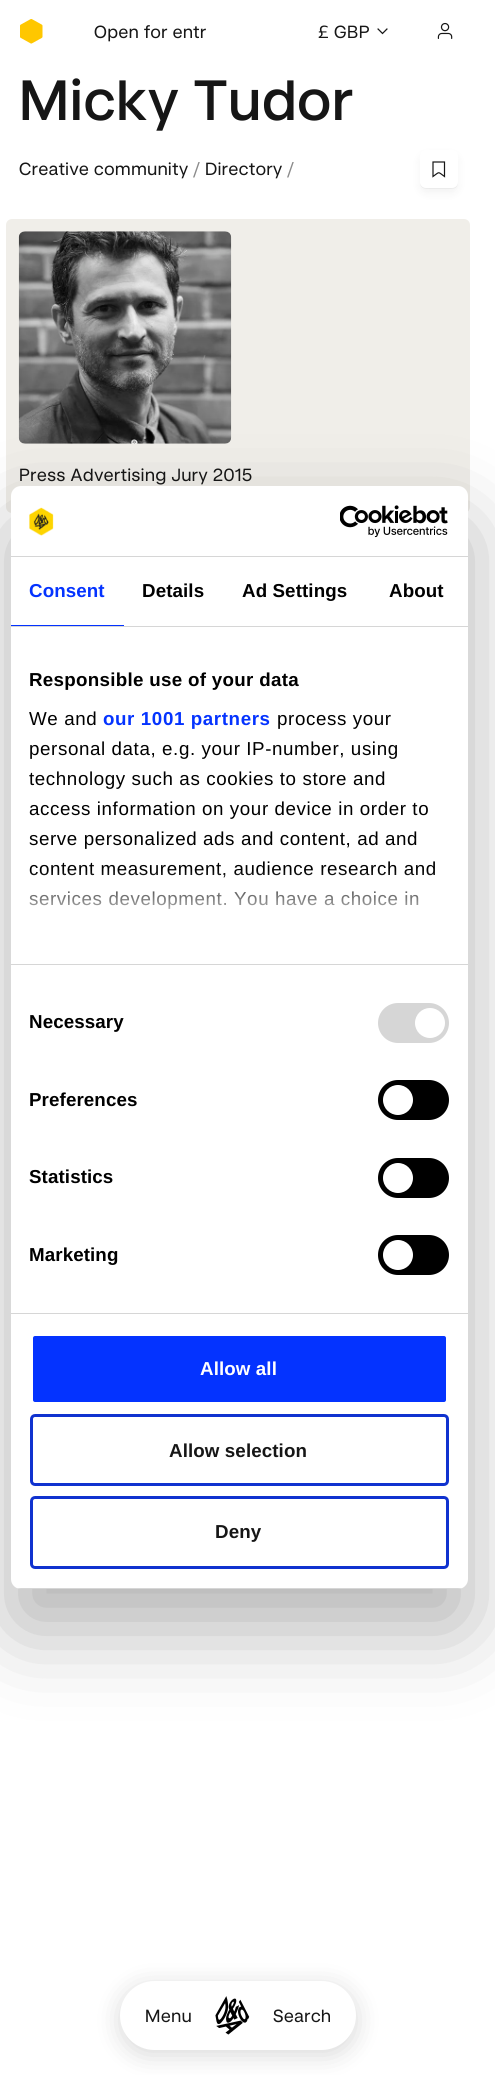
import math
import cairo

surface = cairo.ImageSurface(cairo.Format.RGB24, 495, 2075)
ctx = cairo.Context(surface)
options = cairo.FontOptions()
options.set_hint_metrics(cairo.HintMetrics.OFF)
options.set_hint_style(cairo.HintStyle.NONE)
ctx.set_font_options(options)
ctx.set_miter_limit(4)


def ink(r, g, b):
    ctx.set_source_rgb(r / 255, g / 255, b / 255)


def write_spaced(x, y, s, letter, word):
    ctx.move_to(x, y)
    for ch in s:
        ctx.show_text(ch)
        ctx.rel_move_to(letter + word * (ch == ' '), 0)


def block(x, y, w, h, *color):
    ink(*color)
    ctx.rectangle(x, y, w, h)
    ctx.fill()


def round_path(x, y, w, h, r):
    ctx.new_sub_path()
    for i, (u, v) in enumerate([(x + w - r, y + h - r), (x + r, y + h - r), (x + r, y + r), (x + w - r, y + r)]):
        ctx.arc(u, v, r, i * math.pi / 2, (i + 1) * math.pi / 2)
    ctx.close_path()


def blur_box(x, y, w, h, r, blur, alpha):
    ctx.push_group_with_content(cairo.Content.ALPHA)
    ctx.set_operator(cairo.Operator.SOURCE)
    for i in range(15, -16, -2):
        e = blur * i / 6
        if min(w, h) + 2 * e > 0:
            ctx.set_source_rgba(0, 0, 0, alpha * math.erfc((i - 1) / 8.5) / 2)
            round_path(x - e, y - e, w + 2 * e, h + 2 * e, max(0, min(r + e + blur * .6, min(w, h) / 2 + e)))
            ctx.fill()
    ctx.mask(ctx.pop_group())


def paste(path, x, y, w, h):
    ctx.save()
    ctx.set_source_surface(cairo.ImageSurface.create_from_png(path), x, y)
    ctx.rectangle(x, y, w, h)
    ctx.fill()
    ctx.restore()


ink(255, 255, 255)
ctx.paint()
paste("pic1.png", 20, 19, 23, 25)
ctx.select_font_face("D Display")
ctx.set_font_size(17.5)
ink(22, 22, 22)
write_spaced(94, 38, "Open for entr", 0.6, 0)
write_spaced(318, 38, "£ GBP", 0.6, 0)
paste("pic2.png", 377, 28, 11, 7)
paste("pic3.png", 437, 22, 16, 17)
ctx.select_font_face("D Display Medium")
ctx.set_font_size(56.25)
write_spaced(19, 120, "Micky Tudor", 1.25, 0)
ctx.select_font_face("D Display")
ctx.set_font_size(17.5)
write_spaced(19, 175, "Creative community", 0.6, 0)
ink(139, 139, 139)
write_spaced(193, 175, "/", 0.6, 0)
ink(22, 22, 22)
write_spaced(205, 175, "Directory", 0.6, 0)
ink(139, 139, 139)
write_spaced(287, 175, "/", 0.6, 0)
ink(245, 245, 245)
ctx.new_path()
ctx.move_to(420, 181)
ctx.curve_to(420, 189, 423.5, 189, 430.5, 189)
ctx.line_to(439, 189)
ctx.curve_to(460, 189, 458, 191, 458, 170)
ctx.line_to(458, 161.5)
ctx.curve_to(458, 158.5, 458.5, 155.5, 457, 153.5)
ctx.curve_to(457.5, 154.5, 457.5, 155, 457.5, 156)
ctx.line_to(457.5, 181)
ctx.curve_to(457.5, 184.5, 454.5, 187.5, 451, 187.5)
ctx.line_to(426, 187.5)
ctx.curve_to(423, 187.5, 420, 184.5, 420, 181)
ctx.close_path()
ctx.fill()
ink(0, 0, 0)
blur_box(420, 155, 38, 38, 6, 4.5, 0.05)
ink(255, 255, 255)
round_path(420, 150, 38, 38, 6)
ctx.fill()
ctx.new_path()
ctx.move_to(433, 162)
ctx.line_to(444.5, 162)
ctx.line_to(444.5, 176.5)
ctx.curve_to(437.5, 171.5, 440, 171.5, 433, 176.5)
ctx.close_path()
ink(22, 22, 22)
ctx.set_line_width(1.2)
ctx.stroke()
ink(240, 238, 233)
round_path(6, 219, 464, 294, 6)
ctx.fill()
paste("pic4.png", 18, 231, 214, 213)
ink(22, 22, 22)
write_spaced(19, 481, "Press Advertising Jury 2015", 0.6, 0)
ink(0, 0, 0)
blur_box(120, 1986, 236, 69, 34.5, 12.5, 0.15)
ink(255, 255, 255)
round_path(120, 1981, 236, 69, 34.5)
ctx.fill()
ink(22, 22, 22)
write_spaced(145, 2022, "Menu", 0.6, 0)
paste("pic5.png", 215, 1996, 35, 39)
write_spaced(273, 2022, "Search", 0.6, 0)
ink(0, 0, 0)
blur_box(11, 526, 457, 1103, 10, 42.5, 0.3)
ink(255, 255, 255)
round_path(11, 486, 457, 1103, 10)
ctx.fill()
block(11, 556, 457, 1, 214, 214, 214)
paste("pic6.png", 29, 507, 25, 29)
paste("pic7.png", 340, 505, 108, 33)
block(11, 626, 457, 1, 214, 214, 214)
block(11, 625, 113, 1, 4, 51, 255)
ctx.select_font_face("Liberation Sans", cairo.FontSlant.NORMAL, cairo.FontWeight.BOLD)
ctx.set_font_size(18.75)
write_spaced(29, 597, "Consent", 0.1, 0)
ink(0, 0, 0)
write_spaced(142, 597, "Details", 0.1, 0)
write_spaced(242, 597, "Ad Settings", 0.1, 0)
write_spaced(389, 597, "About", 0.1, 0)
block(11, 964, 457, 1, 214, 214, 214)
ink(0, 0, 0)
write_spaced(29, 686, "Responsible use of your data", 0.3, 0)
ctx.select_font_face("Liberation Sans")
write_spaced(29, 725, "We and", 0.6, 0)
ctx.select_font_face("Liberation Sans", cairo.FontSlant.NORMAL, cairo.FontWeight.BOLD)
ink(4, 51, 255)
write_spaced(103, 725, "our 1001 partners", 0.6, 0)
ctx.select_font_face("Liberation Sans")
ink(0, 0, 0)
write_spaced(277, 725, "process your", 0.6, 0)
write_spaced(29, 755, "personal data, e.g. your IP-number, using", 0.6, 0)
write_spaced(29, 785, "technology such as cookies to store and", 0.6, 0)
write_spaced(29, 815, "access information on your device in order to", 0.6, 0)
write_spaced(29, 845, "serve personalized ads and content, ad and", 0.6, 0)
write_spaced(29, 875, "content measurement, audience research and", 0.6, 0)
write_spaced(29, 905, "services development. You have a choice in", 0.6, 0)
gradient = cairo.LinearGradient(231, 964, 231, 870)
gradient.add_color_stop_rgba(0, 1, 1, 1, 1)
gradient.add_color_stop_rgba(0.5, 1, 1, 1, 0.8)
gradient.add_color_stop_rgba(1, 1, 1, 1, 0)
ctx.set_source(gradient)
ctx.rectangle(29, 871, 407, 38)
ctx.fill()
block(11, 1313, 457, 1, 214, 214, 214)
ctx.select_font_face("Liberation Sans", cairo.FontSlant.NORMAL, cairo.FontWeight.BOLD)
ink(0, 0, 0)
write_spaced(29, 1028, "Necessary", 0.1, 0)
ink(214, 214, 214)
round_path(378, 1003, 71, 40, 20)
ctx.fill()
ink(255, 255, 255)
ctx.arc(430, 1023, 15, 0, 2 * math.pi)
ctx.fill()
ink(0, 0, 0)
write_spaced(29, 1106, "Preferences", 0.1, 0)
round_path(378, 1080, 71, 40, 20)
ctx.fill()
ink(255, 255, 255)
ctx.arc(398, 1100, 15, 0, 2 * math.pi)
ctx.fill()
ink(0, 0, 0)
write_spaced(29, 1183, "Statistics", 0.1, 0)
round_path(378, 1158, 71, 40, 20)
ctx.fill()
ink(255, 255, 255)
ctx.arc(398, 1178, 15, 0, 2 * math.pi)
ctx.fill()
ink(0, 0, 0)
write_spaced(29, 1261, "Marketing", 0.1, 0)
round_path(378, 1235, 71, 40, 20)
ctx.fill()
ink(255, 255, 255)
ctx.arc(398, 1255, 15, 0, 2 * math.pi)
ctx.fill()
ctx.save()
round_path(11, 486, 457, 1103, 10)
ctx.clip()
block(11, 1588, 457, 1, 214, 214, 214)
ctx.restore()
ink(4, 51, 255)
round_path(31.5, 1334.5, 416, 69, 3.5)
ctx.fill_preserve()
ink(255, 255, 255)
ctx.set_line_width(3)
ctx.stroke()
write_spaced(200, 1375, "Allow all", 0.1, 0)
round_path(31.5, 1415.5, 416, 69, 3.5)
ink(16, 50, 207)
ctx.stroke()
ink(22, 22, 22)
write_spaced(169, 1457, "Allow selection", 0.1, 0)
round_path(31.5, 1497.5, 416, 70, 3.5)
ink(16, 50, 207)
ctx.stroke()
ink(22, 22, 22)
write_spaced(215, 1538, "Deny", 0.1, 0)
surface.write_to_png("screenshot.png")
